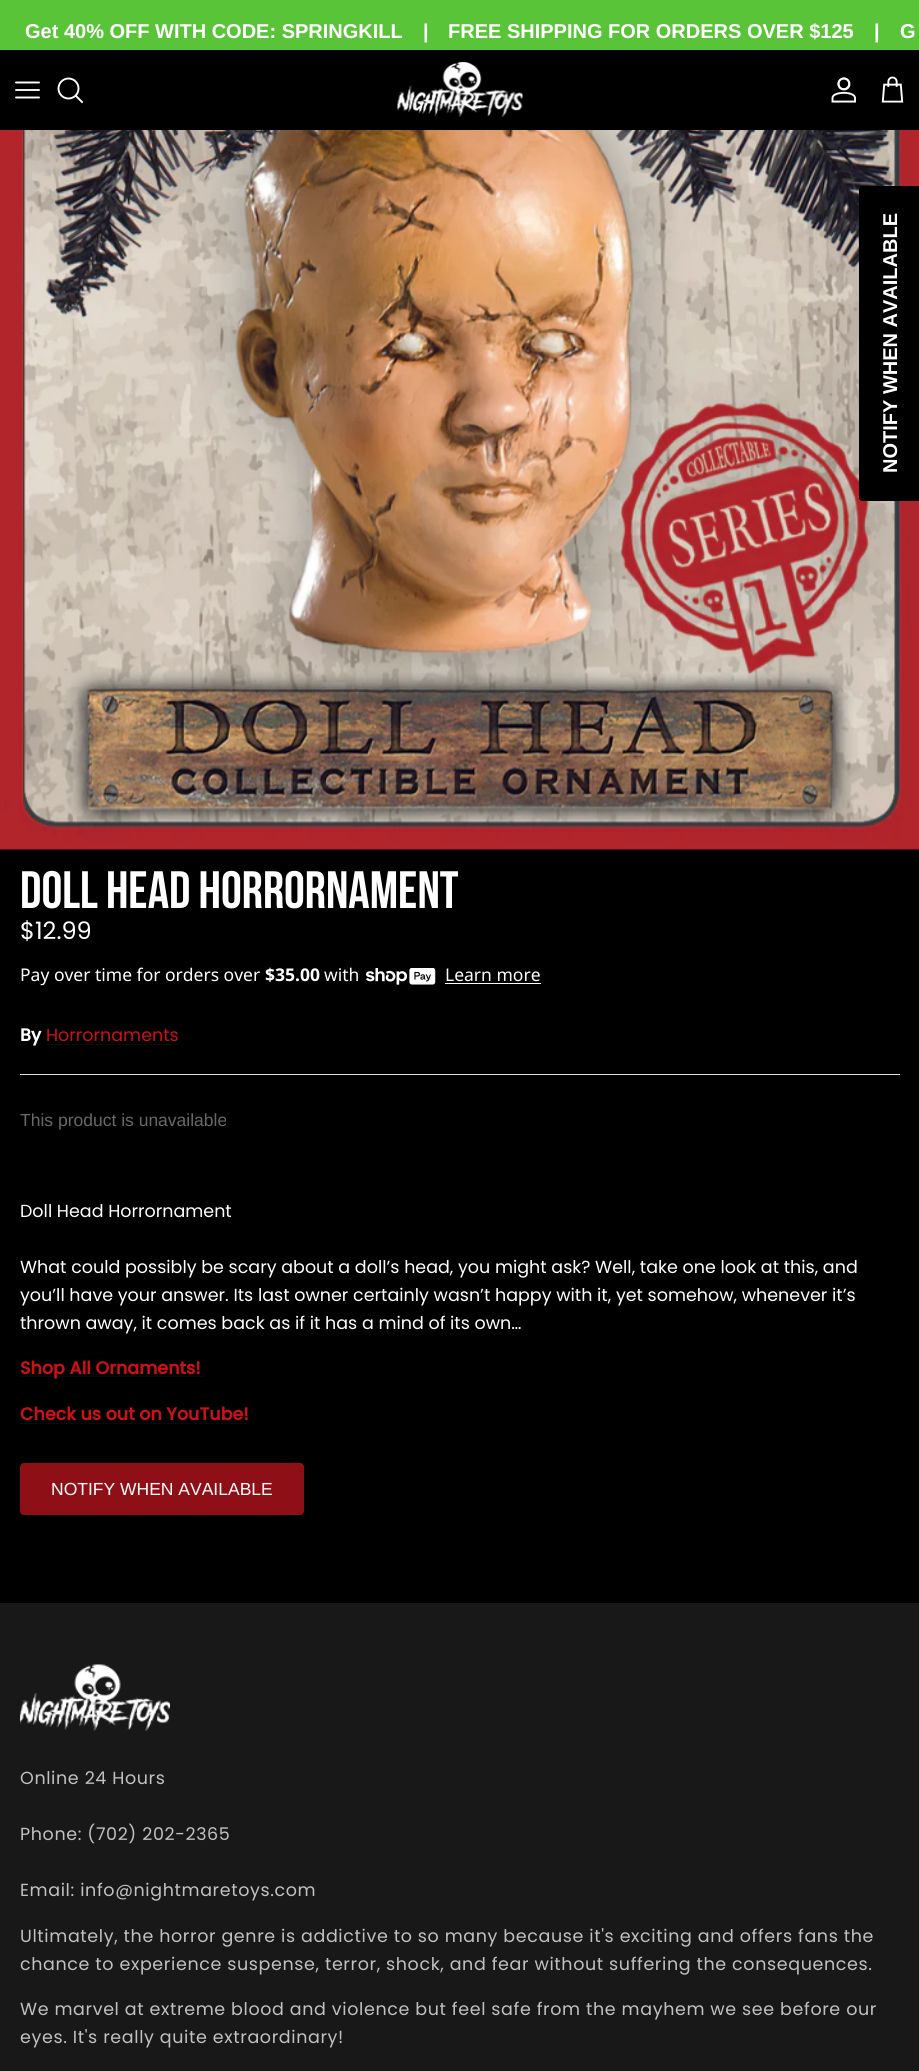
import math
import cairo

surface = cairo.ImageSurface(cairo.Format.RGB24, 919, 2071)
ctx = cairo.Context(surface)
options = cairo.FontOptions()
options.set_hint_metrics(cairo.HintMetrics.OFF)
options.set_hint_style(cairo.HintStyle.NONE)
ctx.set_font_options(options)
ctx.set_miter_limit(4)


def ink(r, g, b):
    ctx.set_source_rgb(r / 255, g / 255, b / 255)


def write(x, y, s, family, size, color, bold=False, italic=False):
    ctx.select_font_face(family, cairo.FontSlant.ITALIC if italic else cairo.FontSlant.NORMAL, cairo.FontWeight.BOLD if bold else cairo.FontWeight.NORMAL)
    ctx.set_font_size(size)
    ink(*color)
    ctx.move_to(x, y)
    ctx.show_text(s)


def write_spaced(x, y, s, letter, word):
    ctx.move_to(x, y)
    for ch in s:
        ctx.show_text(ch)
        ctx.rel_move_to(letter + word * (ch == ' '), 0)


def block(x, y, w, h, *color):
    ink(*color)
    ctx.rectangle(x, y, w, h)
    ctx.fill()


def round_path(x, y, w, h, r):
    ctx.new_sub_path()
    for i, (u, v) in enumerate([(x + w - r, y + h - r), (x + r, y + h - r), (x + r, y + r), (x + w - r, y + r)]):
        ctx.arc(u, v, r, i * math.pi / 2, (i + 1) * math.pi / 2)
    ctx.close_path()


def paste(path, x, y, w, h):
    ctx.save()
    ctx.set_source_surface(cairo.ImageSurface.create_from_png(path), x, y)
    ctx.rectangle(x, y, w, h)
    ctx.fill()
    ctx.restore()


s1 = dict(family="Arimo", size=20, color=(255, 255, 255), bold=True)
s2 = dict(family="Liberation Sans", size=20, color=(255, 255, 255), bold=True)
s3 = dict(family="Bebas Neue", size=52.5, color=(255, 255, 255))
s4 = dict(family="Poppins", size=24, color=(255, 255, 255))
s5 = dict(family="Noto Sans", size=17.5, color=(255, 255, 255))
s6 = dict(family="Noto Sans", size=17.5, color=(255, 255, 255), bold=True)
s7 = dict(family="Poppins", size=17.5, color=(255, 255, 255), bold=True)
s8 = dict(family="Poppins", size=17.5, color=(204, 16, 24))
s9 = dict(family="Arimo", size=17.5, color=(103, 104, 105))
s10 = dict(family="Poppins", size=17.5, color=(255, 255, 255))
s11 = dict(family="Poppins", size=17.5, color=(204, 16, 24), bold=True)
s12 = dict(family="Arimo", size=17.5, color=(255, 255, 255))

ink(0, 0, 0)
ctx.paint()
block(0, 0, 919, 50, 90, 196, 57)
write(25, 38, "Get 40% OFF WITH CODE: SPRINGKILL", **s1)
write(423, 38, "|", **s1)
write(448, 38, "FREE SHIPPING FOR ORDERS OVER $125", **s1)
write(874, 38, "|", **s1)
write(900, 38, "G", **s1)
ctx.new_path()
ctx.move_to(16, 90)
ctx.line_to(39, 90)
ctx.move_to(16, 82.5)
ctx.line_to(39, 82.5)
ctx.move_to(16, 97.5)
ctx.line_to(39, 97.5)
ctx.set_line_width(1.9)
ctx.set_line_cap(cairo.LineCap.ROUND)
ctx.set_line_join(cairo.LineJoin.ROUND)
ctx.stroke()
ctx.arc(68.5, 88.5, 10, 0, 2 * math.pi)
ctx.set_line_cap(cairo.LineCap.BUTT)
ctx.set_line_join(cairo.LineJoin.MITER)
ctx.stroke()
ctx.new_path()
ctx.move_to(76, 96)
ctx.line_to(82, 102)
ctx.set_line_cap(cairo.LineCap.SQUARE)
ctx.stroke()
paste("pic1.png", 397, 62, 126, 55)
paste("pic2.png", 831, 77, 25, 26)
paste("pic3.png", 881, 76, 23, 27)
paste("pic4.png", 0, 130, 919, 720)
ink(0, 0, 0)
ctx.new_path()
ctx.move_to(860, 497)
ctx.line_to(860, 190)
ctx.curve_to(860, 189, 861, 187, 863, 187)
ctx.line_to(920, 187)
ctx.line_to(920, 499)
ctx.line_to(863, 499)
ctx.curve_to(861, 499, 860, 498, 860, 497)
ctx.close_path()
ctx.fill()
ctx.set_fill_rule(cairo.FillRule.EVEN_ODD)
ctx.new_path()
ctx.move_to(859, 497)
ctx.line_to(859, 190)
ctx.curve_to(859, 188, 860, 186, 863, 186)
ctx.line_to(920, 186)
ctx.line_to(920, 501)
ctx.line_to(863, 501)
ctx.curve_to(860, 501, 859, 499, 859, 497)
ctx.close_path()
ctx.move_to(860, 497)
ctx.line_to(860, 190)
ctx.curve_to(860, 189, 861, 187, 863, 187)
ctx.line_to(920, 187)
ctx.line_to(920, 499)
ctx.line_to(863, 499)
ctx.curve_to(861, 499, 860, 498, 860, 497)
ctx.close_path()
ctx.fill()
ctx.save()
ctx.translate(897, 473)
ctx.rotate(-90 * math.pi / 180)
write(0, 0, "NOTIFY WHEN AVAILABLE", **s2)
ctx.restore()
write(20, 908, "Doll Head Horrornament", **s3)
write(20, 939, "$12.99", **s4)
write(20, 981, "Pay over time for orders over", **s5)
write(265, 981, "$35.00", **s6)
write(324, 981, "with", **s5)
paste("pic5.png", 366, 968, 70, 17)
write(445, 981, "Learn more", **s5)
block(445, 983, 96, 1, 255, 255, 255)
write(20, 1041, "By", **s7)
write(46, 1041, "Horrornaments", **s8)
block(46, 1044, 133, 1, 9, 9, 9)
block(20, 1074, 880, 1, 226, 226, 226)
write(20, 1126, "This product is unavailable", **s9)
write(20, 1217, "Doll Head Horrornament", **s10)
write(20, 1273, "What could possibly be scary about a doll’s head, you might ask? Well, take one look at this, and", **s10)
write(20, 1301, "you’ll have your answer. Its last owner certainly wasn’t happy with it, yet somehow, whenever it’s", **s10)
write(20, 1329, "thrown away, it comes back as if it has a mind of its own…", **s10)
block(20, 1376, 185, 1, 9, 9, 9)
write(20, 1374, "Shop All Ornaments!", **s11)
write(20, 1420, "Check us out on YouTube!", **s11)
block(20, 1423, 229, 1, 9, 9, 9)
ink(143, 15, 22)
round_path(20, 1463, 284, 52, 4)
ctx.fill()
write(51, 1495, "NOTIFY WHEN AVAILABLE", **s12)
block(0, 1603, 919, 468, 24, 24, 24)
paste("pic6.png", 20, 1664, 150, 67)
ctx.select_font_face("Poppins")
ink(193, 193, 193)
write_spaced(20, 1784, "Online 24 Hours", 0.62, 0)
write_spaced(20, 1840, "Phone: (702) 202-2365", 0.62, 0)
write_spaced(20, 1896, "Email: info@nightmaretoys.com", 0.62, 0)
write_spaced(20, 1942, "Ultimately, the horror genre is addictive to so many because it's exciting and offers fans the", 0.62, 0)
write_spaced(20, 1970, "chance to experience suspense, terror, shock, and fear without suffering the consequences.", 0.62, 0)
write_spaced(20, 2015, "We marvel at extreme blood and violence but feel safe from the mayhem we see before our", 0.62, 0)
write_spaced(20, 2043, "eyes. It's really quite extraordinary!", 0.62, 0)
surface.write_to_png("screenshot.png")
